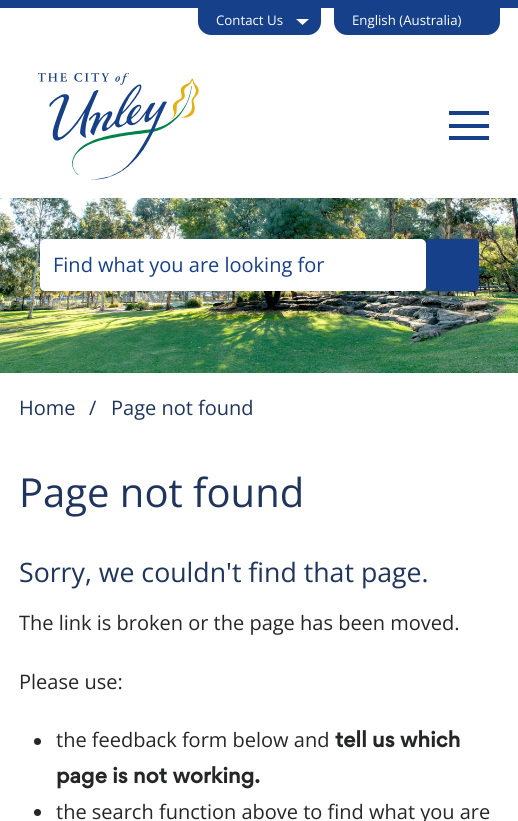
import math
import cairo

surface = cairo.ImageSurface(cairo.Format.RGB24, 518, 821)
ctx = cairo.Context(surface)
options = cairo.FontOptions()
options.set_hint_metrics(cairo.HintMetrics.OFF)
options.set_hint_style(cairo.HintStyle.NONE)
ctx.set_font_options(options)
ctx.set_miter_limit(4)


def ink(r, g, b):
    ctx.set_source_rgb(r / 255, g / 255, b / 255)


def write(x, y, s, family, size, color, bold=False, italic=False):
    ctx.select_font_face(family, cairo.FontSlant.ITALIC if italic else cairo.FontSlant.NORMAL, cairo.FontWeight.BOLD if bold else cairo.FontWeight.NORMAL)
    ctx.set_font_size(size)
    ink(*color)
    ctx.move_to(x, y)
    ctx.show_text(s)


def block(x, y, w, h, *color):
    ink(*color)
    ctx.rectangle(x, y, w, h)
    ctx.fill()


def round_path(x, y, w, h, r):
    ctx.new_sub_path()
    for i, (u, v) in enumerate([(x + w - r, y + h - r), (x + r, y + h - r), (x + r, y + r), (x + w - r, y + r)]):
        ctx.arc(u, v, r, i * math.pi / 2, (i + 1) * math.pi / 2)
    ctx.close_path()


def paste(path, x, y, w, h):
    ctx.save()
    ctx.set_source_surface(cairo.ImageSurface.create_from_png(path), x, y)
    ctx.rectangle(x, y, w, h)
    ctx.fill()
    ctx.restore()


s1 = dict(family="Open Sans", size=13.25, color=(255, 255, 255))
s2 = dict(family="Open Sans", size=20, color=(22, 64, 138))
s3 = dict(family="Open Sans", size=20, color=(31, 53, 94))
s4 = dict(family="Open Sans", size=40, color=(31, 53, 94))
s5 = dict(family="Open Sans", size=26.7, color=(31, 53, 94))
s6 = dict(family="Open Sans", size=20, color=(37, 39, 38))
s7 = dict(family="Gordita", size=20, color=(37, 39, 38), bold=True)

ink(255, 255, 255)
ctx.paint()
paste("pic1.png", 0, 198, 518, 175)
block(0, 0, 518, 8, 22, 64, 138)
ctx.new_path()
ctx.move_to(198, 8)
ctx.line_to(321, 8)
ctx.line_to(321, 22)
ctx.curve_to(321, 29, 315, 35, 308, 35)
ctx.line_to(211, 35)
ctx.curve_to(204, 35, 198, 29, 198, 22)
ctx.close_path()
ctx.fill()
write(216, 25, "Contact Us", **s1)
ctx.new_path()
ctx.move_to(296, 19)
ctx.line_to(309, 19)
ctx.line_to(302.5, 25)
ctx.close_path()
ctx.fill()
ink(22, 64, 138)
ctx.new_path()
ctx.move_to(334, 8)
ctx.line_to(500, 8)
ctx.line_to(500, 22)
ctx.curve_to(500, 29, 494, 35, 487, 35)
ctx.line_to(347, 35)
ctx.curve_to(340, 35, 334, 29, 334, 22)
ctx.close_path()
ctx.fill()
write(352, 25, "English (Australia)", **s1)
paste("pic2.png", 38, 73, 161, 107)
block(449, 124, 40, 4, 22, 64, 138)
block(449, 111, 40, 4, 22, 64, 138)
block(449, 136, 40, 4, 22, 64, 138)
ink(255, 255, 255)
round_path(40, 239, 386, 52, 5)
ctx.fill()
write(53, 272, "Find what you are looking for", **s2)
round_path(426, 239, 53, 52, 5)
ctx.fill()
write(19, 415, "Home", **s3)
write(89, 415, "/", **s3)
write(111, 415, "Page not found", **s3)
write(19, 507, "Page not found", **s4)
write(19, 582, "Sorry, we couldn't find that page.", **s5)
write(19, 630, "The link is broken or the page has been moved.", **s6)
write(19, 689, "Please use:", **s6)
ctx.new_path()
ctx.arc(37.5, 741.5, 3.5, 0, 2 * math.pi)
ctx.fill()
write(56, 747, "the feedback form below and", **s6)
write(335, 747, "tell us which", **s7)
write(56, 783, "page is not working.", **s7)
ctx.new_path()
ctx.arc(37.5, 812.5, 3.5, 0, 2 * math.pi)
ctx.fill()
write(56, 819, "the search function above to find what you are", **s6)
surface.write_to_png("screenshot.png")
